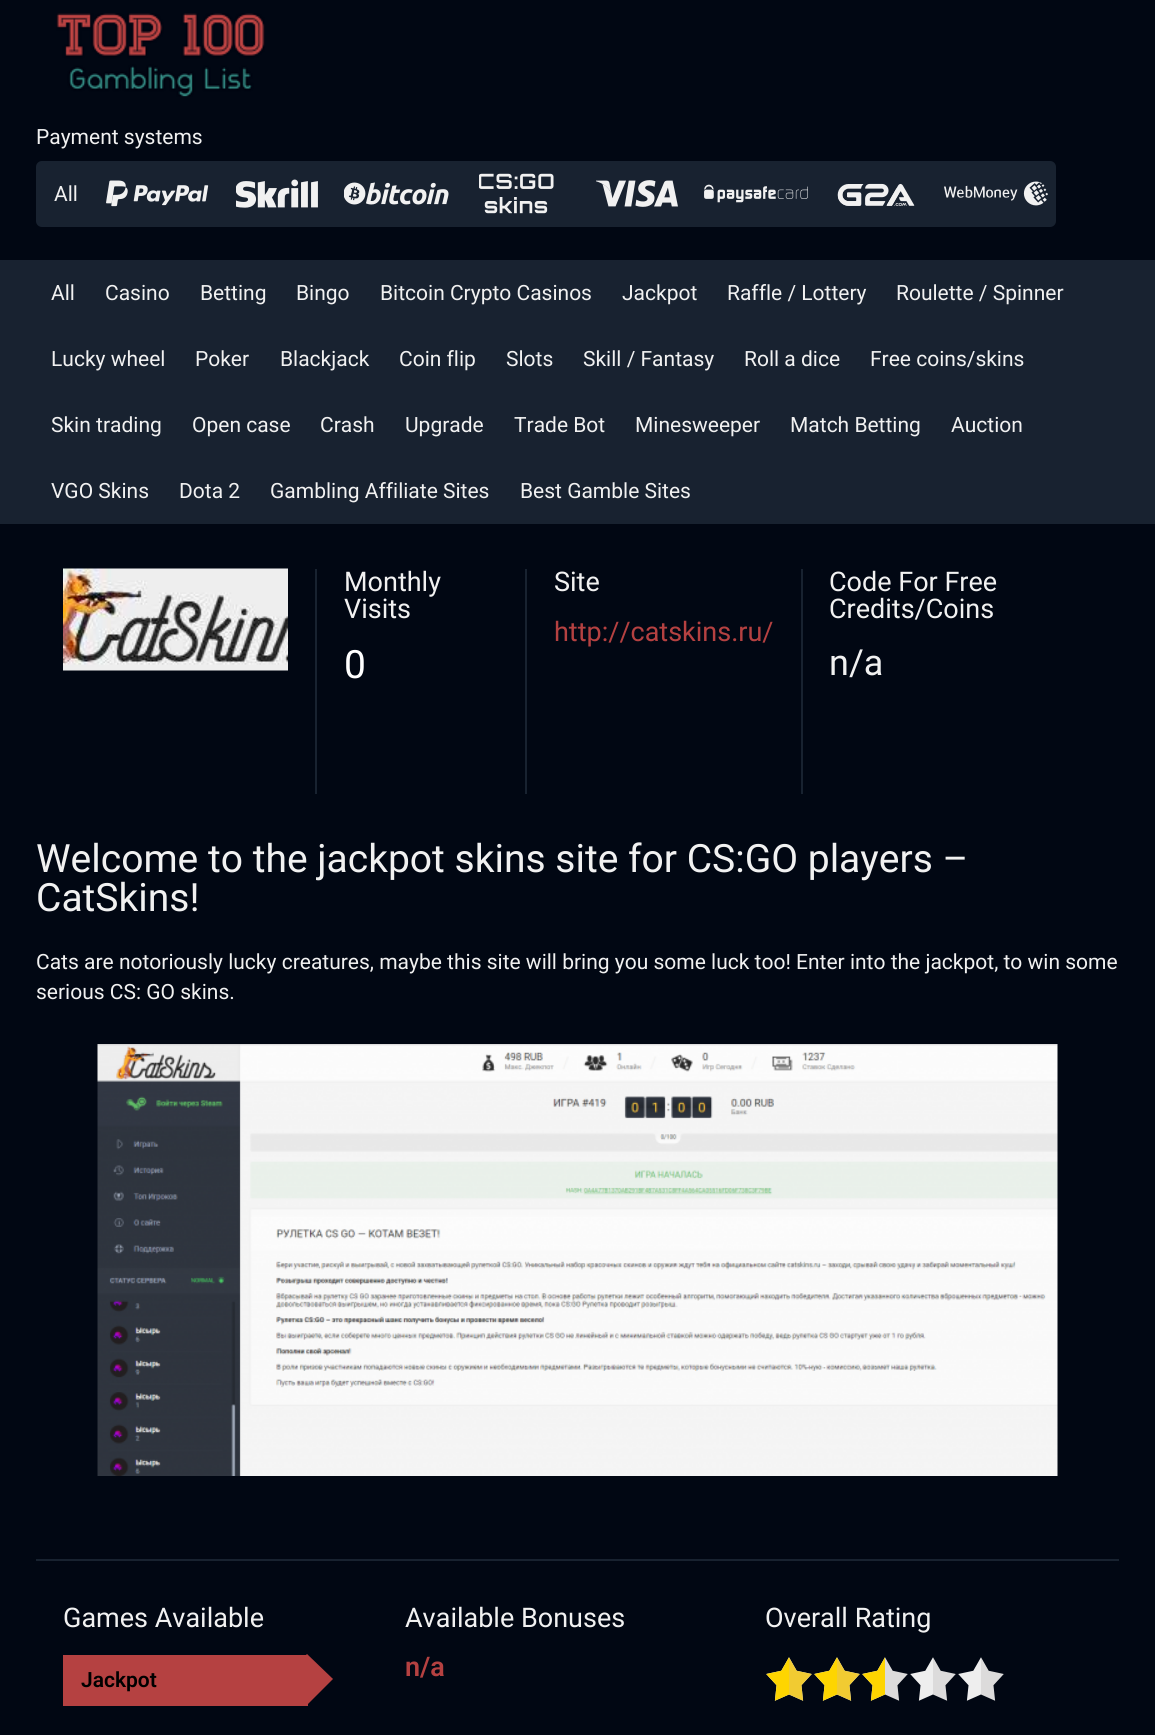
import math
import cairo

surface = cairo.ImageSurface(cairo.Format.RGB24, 1155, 1735)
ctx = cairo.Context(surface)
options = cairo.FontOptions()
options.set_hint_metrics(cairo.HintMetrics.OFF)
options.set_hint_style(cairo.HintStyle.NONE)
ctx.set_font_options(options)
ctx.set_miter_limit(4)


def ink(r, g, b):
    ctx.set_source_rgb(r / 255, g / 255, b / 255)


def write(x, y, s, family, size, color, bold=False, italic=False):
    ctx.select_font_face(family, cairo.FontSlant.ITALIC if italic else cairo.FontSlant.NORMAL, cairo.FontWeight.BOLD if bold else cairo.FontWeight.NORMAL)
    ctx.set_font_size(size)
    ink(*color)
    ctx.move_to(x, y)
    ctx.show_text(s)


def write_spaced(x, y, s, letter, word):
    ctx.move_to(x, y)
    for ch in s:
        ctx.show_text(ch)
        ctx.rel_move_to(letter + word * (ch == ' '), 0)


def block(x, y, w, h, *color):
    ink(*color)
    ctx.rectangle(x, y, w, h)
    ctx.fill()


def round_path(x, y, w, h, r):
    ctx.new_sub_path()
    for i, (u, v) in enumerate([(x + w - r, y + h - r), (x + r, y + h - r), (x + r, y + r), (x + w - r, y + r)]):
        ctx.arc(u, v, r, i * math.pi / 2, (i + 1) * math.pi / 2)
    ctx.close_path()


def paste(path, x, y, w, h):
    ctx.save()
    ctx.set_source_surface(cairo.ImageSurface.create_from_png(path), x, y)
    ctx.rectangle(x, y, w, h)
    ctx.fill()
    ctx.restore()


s1 = dict(family="Roboto", size=21, color=(241, 241, 241))
s2 = dict(family="Roboto", size=27, color=(241, 241, 241))
s3 = dict(family="Roboto", size=27, color=(181, 65, 65))
s4 = dict(family="Roboto", size=36, color=(241, 241, 241))
s5 = dict(family="Roboto", size=39, color=(241, 241, 241))
s6 = dict(family="Roboto SemiBold", size=21, color=(0, 0, 0))
s7 = dict(family="Roboto SemiBold", size=27, color=(181, 65, 65))

ink(1, 7, 19)
ctx.paint()
paste("pic1.png", 56, 13, 209, 84)
write(36, 144, "Payment systems", **s1)
ink(24, 34, 48)
round_path(36, 161, 1020, 66, 6)
ctx.fill()
write(54, 201, "All", **s1)
paste("pic2.png", 106, 180, 103, 27)
paste("pic3.png", 236, 179, 82, 29)
paste("pic4.png", 344, 182, 105, 23)
paste("pic5.png", 479, 173, 75, 41)
paste("pic6.png", 596, 180, 82, 27)
paste("pic7.png", 704, 184, 104, 19)
paste("pic8.png", 837, 183, 78, 23)
paste("pic9.png", 944, 181, 104, 25)
block(0, 260, 1155, 264, 24, 34, 48)
write(51, 300, "All", **s1)
write(105, 300, "Casino", **s1)
write(200, 300, "Betting", **s1)
write(296, 300, "Bingo", **s1)
write(380, 300, "Bitcoin Crypto Casinos", **s1)
write(622, 300, "Jackpot", **s1)
write(727, 300, "Raffle / Lottery", **s1)
write(896, 300, "Roulette / Spinner", **s1)
write(51, 366, "Lucky wheel", **s1)
write(195, 366, "Poker", **s1)
write(280, 366, "Blackjack", **s1)
write(399, 366, "Coin flip", **s1)
write(506, 366, "Slots", **s1)
write(583, 366, "Skill / Fantasy", **s1)
write(744, 366, "Roll a dice", **s1)
write(870, 366, "Free coins/skins", **s1)
write(51, 432, "Skin trading", **s1)
write(192, 432, "Open case", **s1)
write(320, 432, "Crash", **s1)
write(405, 432, "Upgrade", **s1)
write(514, 432, "Trade Bot", **s1)
write(635, 432, "Minesweeper", **s1)
write(790, 432, "Match Betting", **s1)
write(951, 432, "Auction", **s1)
write(51, 498, "VGO Skins", **s1)
write(179, 498, "Dota 2", **s1)
write(270, 498, "Gambling Affiliate Sites", **s1)
write(520, 498, "Best Gamble Sites", **s1)
block(315, 569, 2, 225, 24, 34, 48)
paste("pic10.png", 63, 568, 225, 103)
block(525, 569, 2, 225, 24, 34, 48)
write(344, 591, "Monthly", **s2)
write(344, 618, "Visits", **s2)
ctx.set_font_size(39)
ink(255, 255, 255)
write_spaced(344, 678, "0", 2, 0)
block(801, 569, 2, 225, 24, 34, 48)
write(554, 591, "Site", **s2)
write(554, 641, "http://catskins.ru/", **s3)
write(829, 591, "Code For Free", **s2)
write(829, 618, "Credits/Coins", **s2)
write(829, 675, "n/a", **s4)
block(36, 1559, 1083, 2, 24, 34, 48)
write(36, 872, "Welcome to the jackpot skins site for CS:GO players –", **s5)
write(36, 911, "CatSkins!", **s5)
write(36, 969, "Cats are notoriously lucky creatures, maybe this site will bring you some luck too! Enter into the jackpot, to win some", **s1)
write(36, 999, "serious CS: GO skins.", **s1)
paste("pic11.png", 97, 1044, 961, 432)
write(63, 1627, "Games Available", **s2)
block(63, 1655, 245, 51, 181, 65, 65)
write(81, 1687, "Jackpot", **s6)
ink(181, 65, 65)
ctx.new_path()
ctx.move_to(307, 1654)
ctx.line_to(333, 1679)
ctx.line_to(307, 1705)
ctx.line_to(282, 1679)
ctx.close_path()
ctx.fill()
write(405, 1627, "Available Bonuses", **s2)
write(405, 1676, "n/a", **s7)
write(765, 1627, "Overall Rating", **s2)
paste("pic12.png", 766, 1657, 238, 44)
paste("pic13.png", 766, 1657, 119, 44)
surface.write_to_png("screenshot.png")
